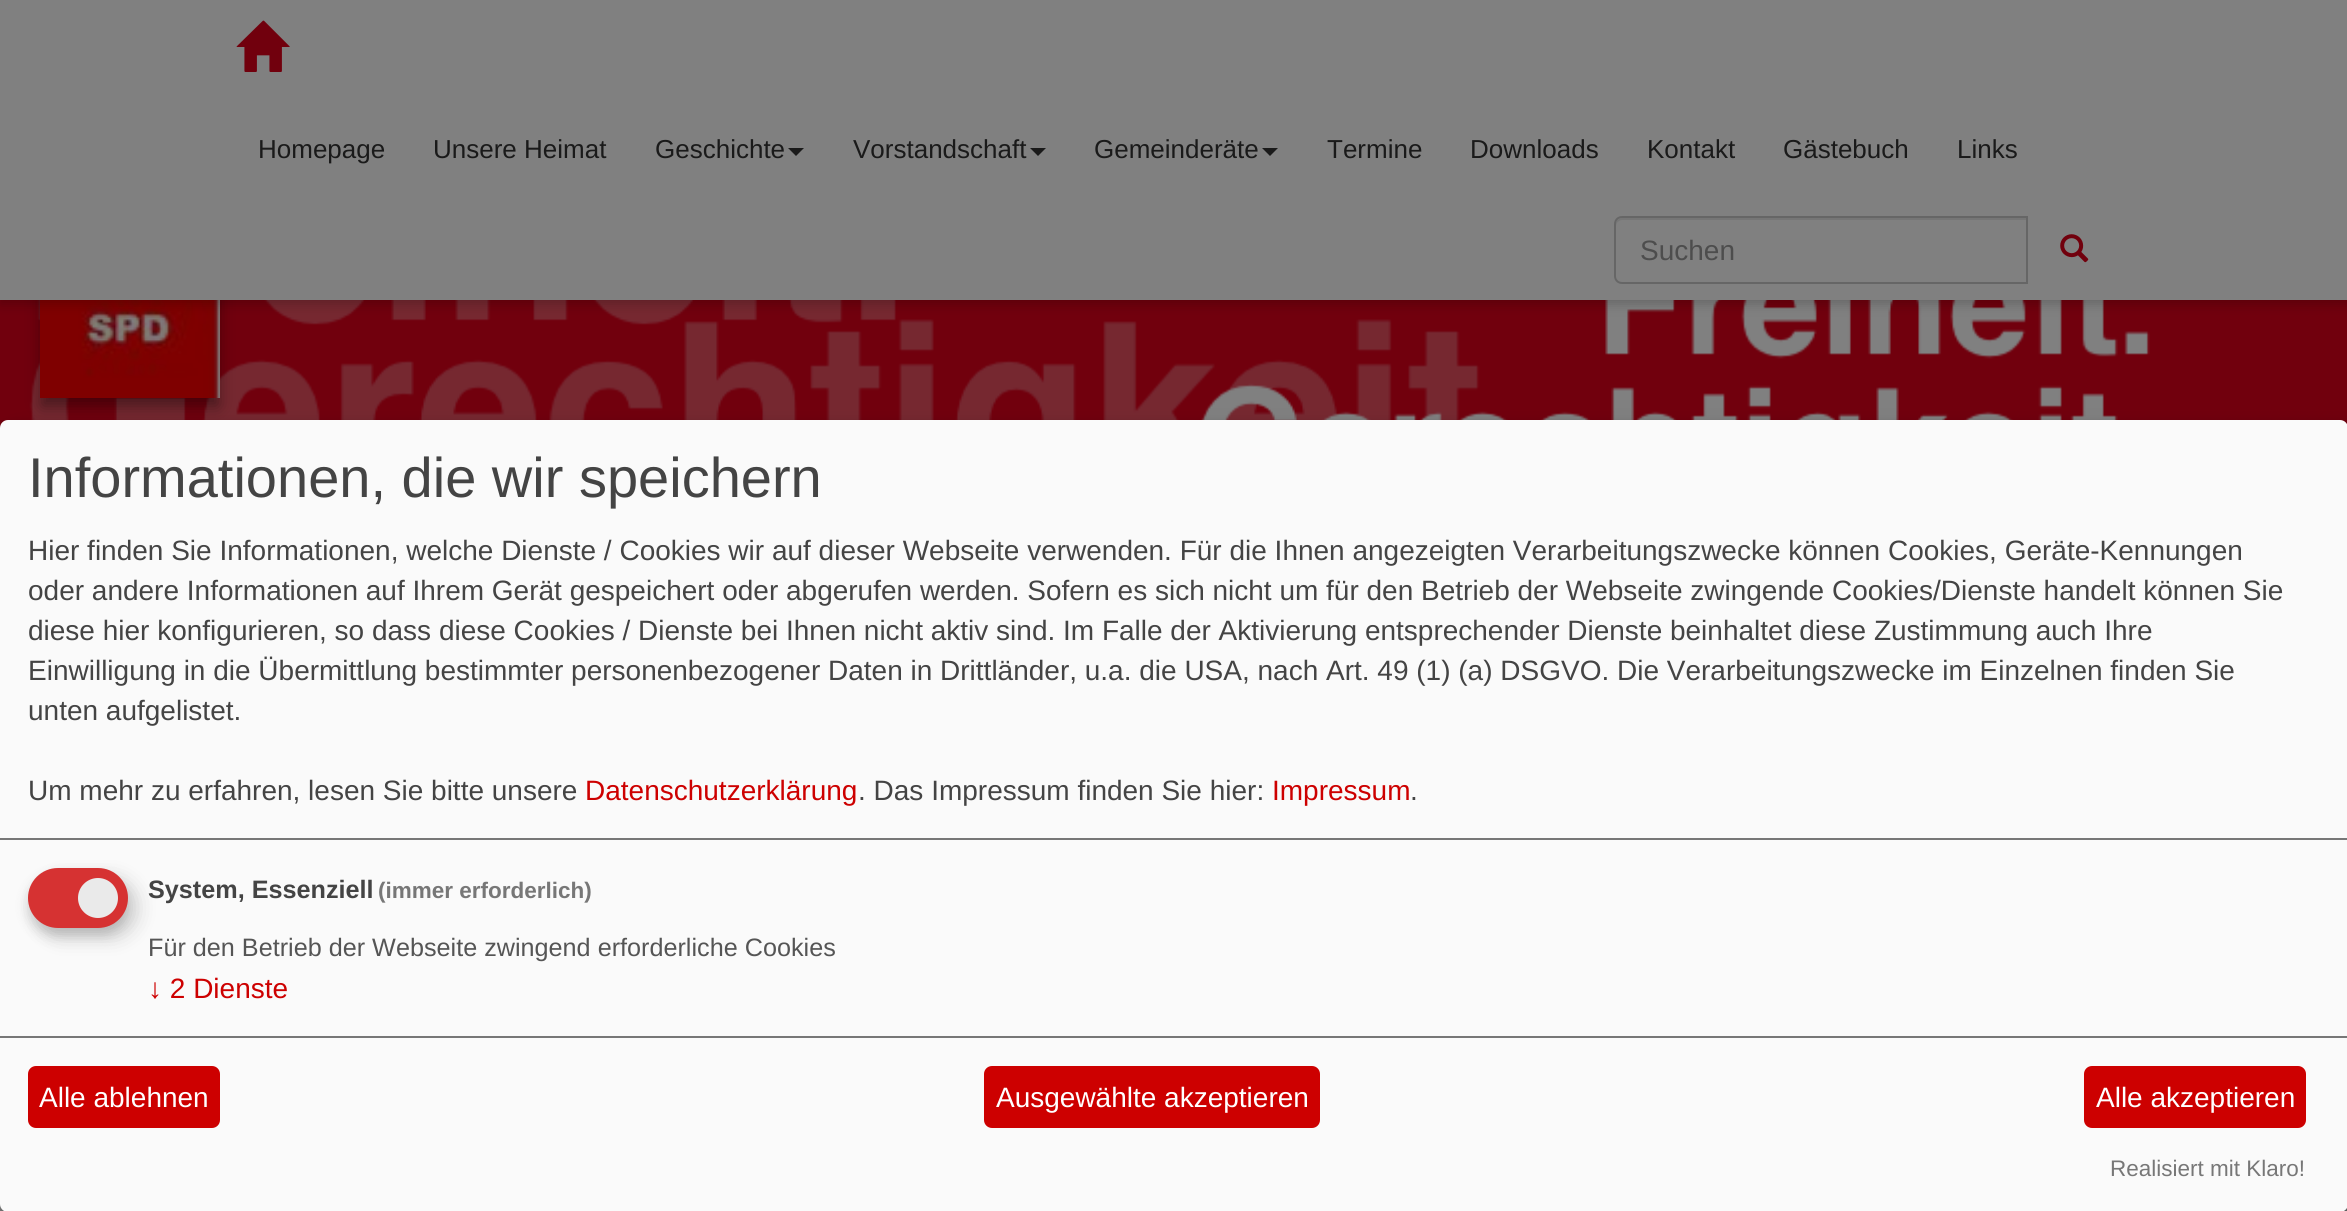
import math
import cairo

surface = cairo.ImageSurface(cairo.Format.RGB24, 2347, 1211)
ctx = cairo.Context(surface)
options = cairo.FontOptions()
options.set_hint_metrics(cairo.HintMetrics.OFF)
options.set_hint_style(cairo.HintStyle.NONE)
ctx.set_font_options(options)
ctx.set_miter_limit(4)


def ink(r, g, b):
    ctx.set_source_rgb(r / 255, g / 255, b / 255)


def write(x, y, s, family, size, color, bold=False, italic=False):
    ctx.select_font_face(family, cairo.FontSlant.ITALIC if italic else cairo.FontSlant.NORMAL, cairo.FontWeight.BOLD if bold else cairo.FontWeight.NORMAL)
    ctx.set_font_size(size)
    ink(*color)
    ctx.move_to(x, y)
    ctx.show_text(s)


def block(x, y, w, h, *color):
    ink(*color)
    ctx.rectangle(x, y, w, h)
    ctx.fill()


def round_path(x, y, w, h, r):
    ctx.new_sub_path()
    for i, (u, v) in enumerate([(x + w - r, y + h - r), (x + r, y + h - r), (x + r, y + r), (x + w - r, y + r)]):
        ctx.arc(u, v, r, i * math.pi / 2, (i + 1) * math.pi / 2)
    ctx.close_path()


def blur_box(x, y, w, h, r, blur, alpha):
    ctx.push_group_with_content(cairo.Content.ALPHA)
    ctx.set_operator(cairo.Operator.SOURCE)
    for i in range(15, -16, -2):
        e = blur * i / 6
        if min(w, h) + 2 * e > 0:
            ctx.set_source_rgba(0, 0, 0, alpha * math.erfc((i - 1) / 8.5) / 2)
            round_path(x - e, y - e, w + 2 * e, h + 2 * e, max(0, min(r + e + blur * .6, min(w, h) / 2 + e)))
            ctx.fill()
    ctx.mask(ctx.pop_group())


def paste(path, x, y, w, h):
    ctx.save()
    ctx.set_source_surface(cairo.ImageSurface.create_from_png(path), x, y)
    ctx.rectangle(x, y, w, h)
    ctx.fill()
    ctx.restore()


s1 = dict(family="Liberation Sans", size=26, color=(26, 26, 26))
s2 = dict(family="Liberation Sans", size=28, color=(77, 77, 77))
s3 = dict(family="Liberation Sans", size=56, color=(68, 68, 68))
s4 = dict(family="Liberation Sans", size=28, color=(68, 68, 68))
s5 = dict(family="Liberation Sans", size=28, color=(205, 0, 0))
s6 = dict(family="Liberation Sans", size=25.2, color=(68, 68, 68), bold=True)
s7 = dict(family="Liberation Sans", size=22.5, color=(119, 119, 119), bold=True)
s8 = dict(family="Liberation Sans", size=25.2, color=(85, 85, 85))
s9 = dict(family="Liberation Sans", size=28, color=(255, 255, 255))
s10 = dict(family="Liberation Sans", size=22.5, color=(119, 119, 119))

ink(128, 128, 128)
ctx.paint()
paste("pic3.png", 0, 300, 2347, 128)
ink(0, 0, 0)
blur_box(42, 178, 176, 228, 0, 8, 0.4)
paste("pic4.png", 40, 300, 180, 98)
blur_box(0, 4, 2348, 300, 0, 6, 0.2)
block(0, 0, 2347, 300, 128, 128, 128)
paste("pic1.png", 236, 20, 54, 52)
write(258, 158, "Homepage", **s1)
write(433, 158, "Unsere Heimat", **s1)
write(655, 158, "Geschichte", **s1)
ctx.new_path()
ctx.move_to(788, 148)
ctx.line_to(804, 148)
ctx.line_to(796, 156)
ctx.close_path()
ctx.fill()
write(853, 158, "Vorstandschaft", **s1)
ctx.new_path()
ctx.move_to(1030, 148)
ctx.line_to(1046, 148)
ctx.line_to(1038, 156)
ctx.close_path()
ctx.fill()
write(1094, 158, "Gemeinderäte", **s1)
ctx.new_path()
ctx.move_to(1262, 148)
ctx.line_to(1278, 148)
ctx.line_to(1270, 156)
ctx.close_path()
ctx.fill()
write(1327, 158, "Termine", **s1)
write(1470, 158, "Downloads", **s1)
write(1647, 158, "Kontakt", **s1)
write(1783, 158, "Gästebuch", **s1)
write(1957, 158, "Links", **s1)
ink(118, 118, 118)
ctx.new_path()
ctx.move_to(1622, 220)
ctx.line_to(2026, 220)
ctx.line_to(2026, 218)
ctx.line_to(1622, 218)
ctx.curve_to(1619, 218, 1616, 221, 1616, 224)
ctx.line_to(1616, 226)
ctx.curve_to(1616, 223, 1619, 220, 1622, 220)
ctx.close_path()
ctx.fill()
ctx.new_path()
ctx.move_to(1622, 217)
ctx.line_to(2027, 217)
ctx.line_to(2027, 283)
ctx.line_to(1622, 283)
ctx.curve_to(1618, 283, 1615, 280, 1615, 276)
ctx.line_to(1615, 224)
ctx.curve_to(1615, 220, 1618, 217, 1622, 217)
ctx.close_path()
ink(102, 102, 102)
ctx.stroke()
write(1640, 260, "Suchen", **s2)
paste("pic2.png", 2060, 234, 29, 29)
ink(0, 0, 0)
blur_box(10, 430, 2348, 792, 8, 10, 0.19)
blur_box(0, 428, 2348, 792, 8, 6, 0.2)
ink(250, 250, 250)
round_path(0, 420, 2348, 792, 8)
ctx.fill()
block(0, 838, 2347, 2, 119, 119, 119)
write(28, 497, "Informationen, die wir speichern", **s3)
write(28, 560, "Hier finden Sie Informationen, welche Dienste / Cookies wir auf dieser Webseite verwenden. Für die Ihnen angezeigten Verarbeitungszwecke können Cookies, Geräte-Kennungen", **s4)
write(28, 600, "oder andere Informationen auf Ihrem Gerät gespeichert oder abgerufen werden. Sofern es sich nicht um für den Betrieb der Webseite zwingende Cookies/Dienste handelt können Sie", **s4)
write(28, 640, "diese hier konfigurieren, so dass diese Cookies / Dienste bei Ihnen nicht aktiv sind. Im Falle der Aktivierung entsprechender Dienste beinhaltet diese Zustimmung auch Ihre", **s4)
write(28, 680, "Einwilligung in die Übermittlung bestimmter personenbezogener Daten in Drittländer, u.a. die USA, nach Art. 49 (1) (a) DSGVO. Die Verarbeitungszwecke im Einzelnen finden Sie", **s4)
write(28, 720, "unten aufgelistet.", **s4)
write(28, 800, "Um mehr zu erfahren, lesen Sie bitte unsere", **s4)
write(585, 800, "Datenschutzerklärung", **s5)
write(858, 800, ". Das Impressum finden Sie hier:", **s4)
write(1272, 800, "Impressum", **s5)
write(1410, 800, ".", **s4)
ink(0, 0, 0)
blur_box(38, 878, 100, 60, 30, 10, 0.15)
ink(50, 50, 50)
blur_box(28, 876, 100, 60, 30, 6, 0.2)
ink(214, 50, 50)
round_path(28, 868, 100, 60, 30)
ctx.fill()
ink(234, 234, 234)
ctx.arc(98, 898, 20, 0, 2 * math.pi)
ctx.fill()
write(148, 898, "System, Essenziell", **s6)
write(378, 898, "(immer erforderlich)", **s7)
write(148, 956, "Für den Betrieb der Webseite zwingend erforderliche Cookies", **s8)
write(148, 998, "↓ 2 Dienste", **s5)
block(0, 1036, 2347, 2, 119, 119, 119)
ink(205, 0, 0)
round_path(28, 1066, 192, 62, 8)
ctx.fill()
write(39, 1107, "Alle ablehnen", **s9)
ink(205, 0, 0)
round_path(984, 1066, 336, 62, 8)
ctx.fill()
write(996, 1107, "Ausgewählte akzeptieren", **s9)
ink(205, 0, 0)
round_path(2084, 1066, 222, 62, 8)
ctx.fill()
write(2096, 1107, "Alle akzeptieren", **s9)
write(2110, 1176, "Realisiert mit Klaro!", **s10)
surface.write_to_png("screenshot.png")
